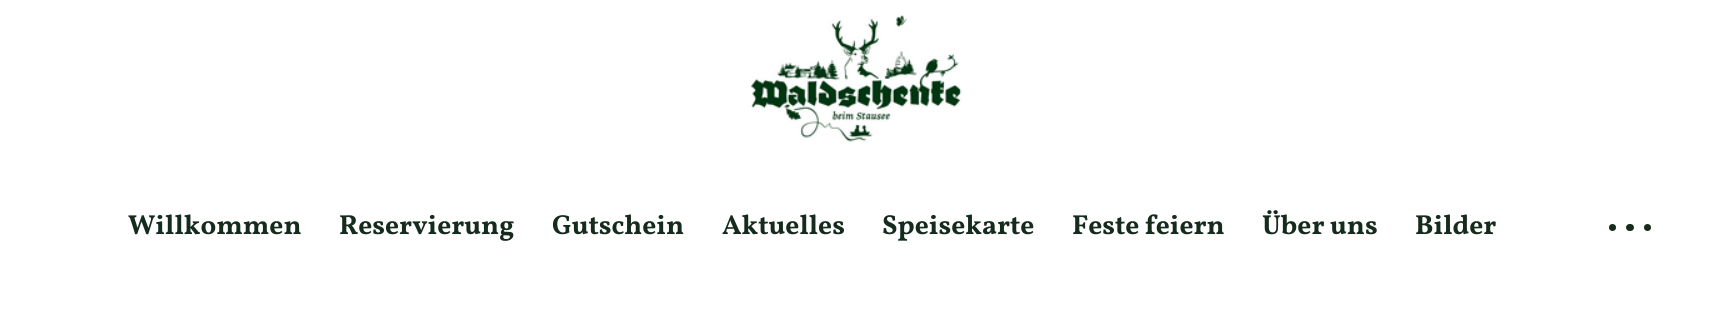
import math
import cairo

surface = cairo.ImageSurface(cairo.Format.RGB24, 1714, 325)
ctx = cairo.Context(surface)
options = cairo.FontOptions()
options.set_hint_metrics(cairo.HintMetrics.OFF)
options.set_hint_style(cairo.HintStyle.NONE)
ctx.set_font_options(options)
ctx.set_miter_limit(4)


def ink(r, g, b):
    ctx.set_source_rgb(r / 255, g / 255, b / 255)


def write(x, y, s, family, size, color, bold=False, italic=False):
    ctx.select_font_face(family, cairo.FontSlant.ITALIC if italic else cairo.FontSlant.NORMAL, cairo.FontWeight.BOLD if bold else cairo.FontWeight.NORMAL)
    ctx.set_font_size(size)
    ink(*color)
    ctx.move_to(x, y)
    ctx.show_text(s)


def round_path(x, y, w, h, r):
    ctx.new_sub_path()
    for i, (u, v) in enumerate([(x + w - r, y + h - r), (x + r, y + h - r), (x + r, y + r), (x + w - r, y + r)]):
        ctx.arc(u, v, r, i * math.pi / 2, (i + 1) * math.pi / 2)
    ctx.close_path()


def paste(path, x, y, w, h):
    ctx.save()
    ctx.set_source_surface(cairo.ImageSurface.create_from_png(path), x, y)
    ctx.rectangle(x, y, w, h)
    ctx.fill()
    ctx.restore()


s1 = dict(family="Vollkorn", size=27.5, color=(21, 43, 29), bold=True)

ink(255, 255, 255)
ctx.paint()
paste("pic1.png", 750, 15, 212, 127)
write(128, 234, "Willkommen", **s1)
write(339, 234, "Reservierung", **s1)
write(552, 234, "Gutschein", **s1)
write(722, 234, "Aktuelles", **s1)
write(882, 234, "Speisekarte", **s1)
write(1072, 234, "Feste feiern", **s1)
write(1262, 234, "Über uns", **s1)
write(1415, 234, "Bilder", **s1)
ctx.new_path()
ctx.arc(1612.5, 227.5, 3.5, 0, 2 * math.pi)
ctx.fill()
round_path(1626, 224, 8, 7, 3.5)
ctx.fill()
ctx.arc(1647.5, 227.5, 3.5, 0, 2 * math.pi)
ctx.fill()
surface.write_to_png("screenshot.png")
